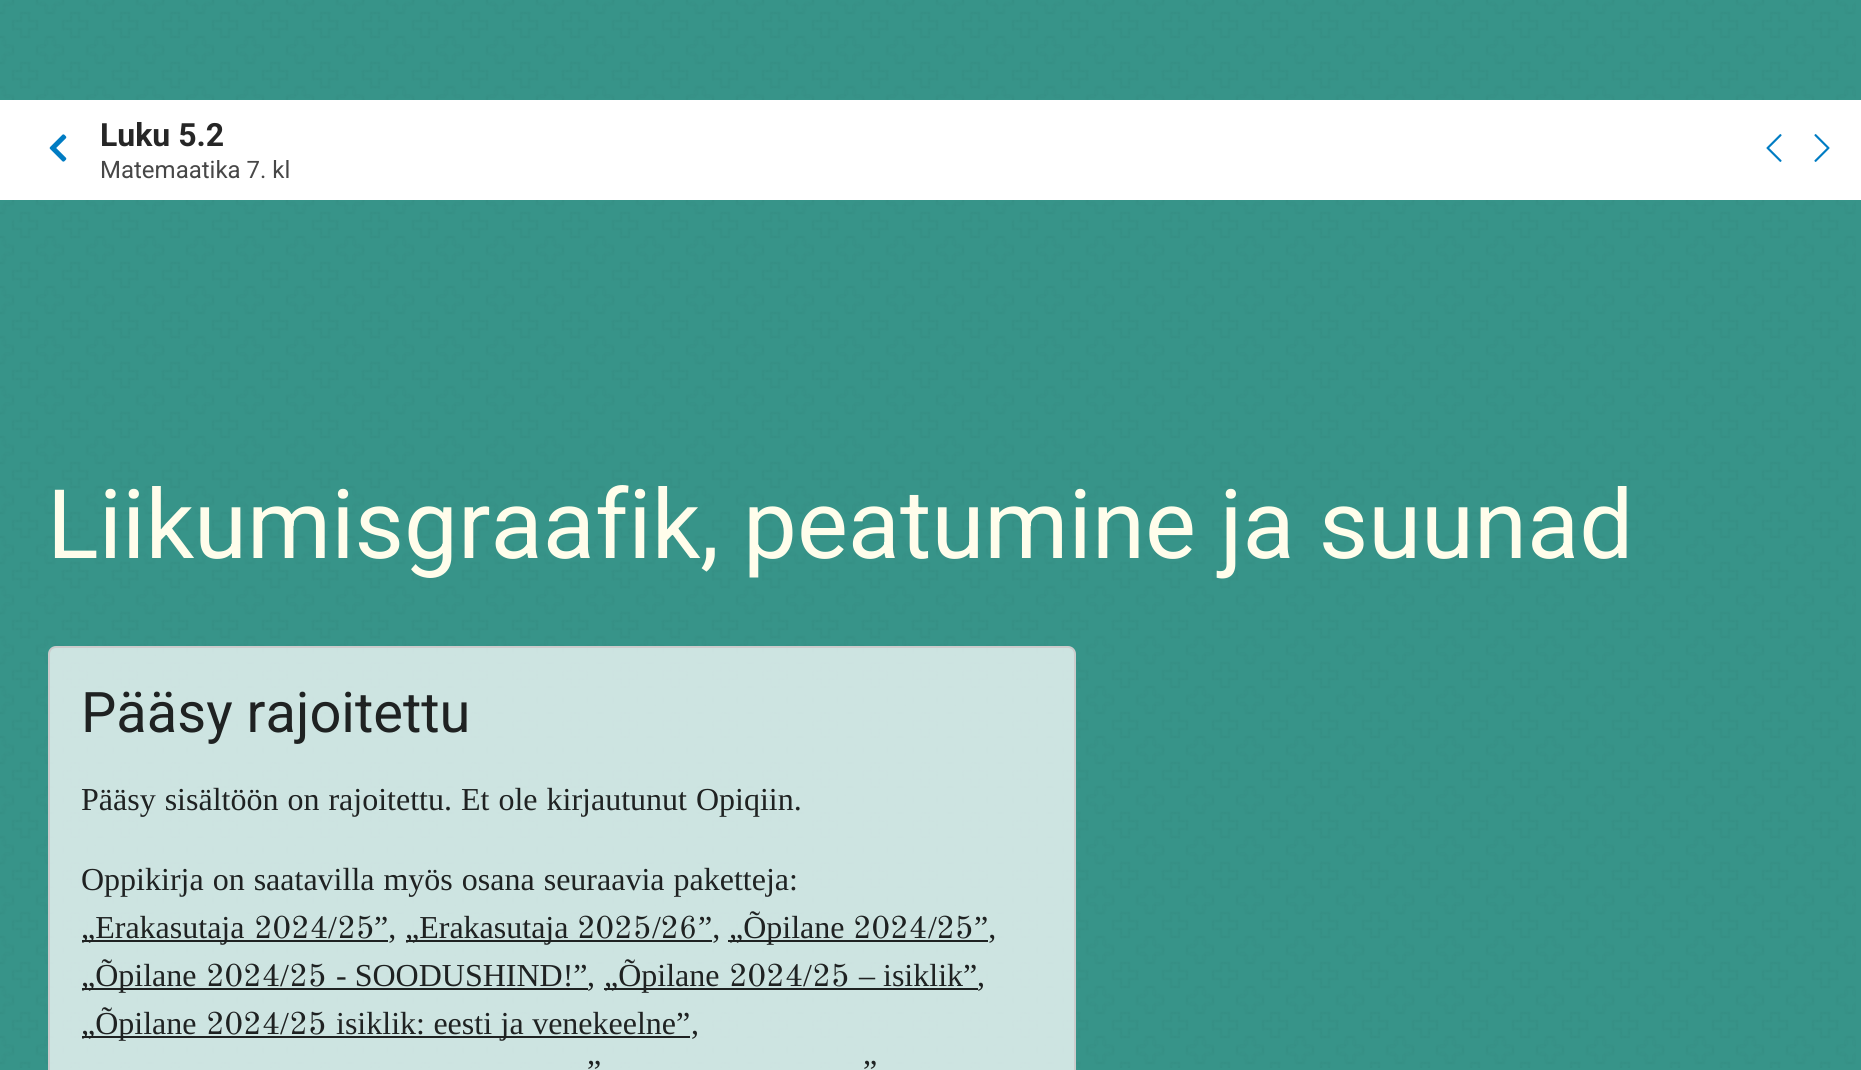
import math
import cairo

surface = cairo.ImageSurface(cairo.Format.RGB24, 1861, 1070)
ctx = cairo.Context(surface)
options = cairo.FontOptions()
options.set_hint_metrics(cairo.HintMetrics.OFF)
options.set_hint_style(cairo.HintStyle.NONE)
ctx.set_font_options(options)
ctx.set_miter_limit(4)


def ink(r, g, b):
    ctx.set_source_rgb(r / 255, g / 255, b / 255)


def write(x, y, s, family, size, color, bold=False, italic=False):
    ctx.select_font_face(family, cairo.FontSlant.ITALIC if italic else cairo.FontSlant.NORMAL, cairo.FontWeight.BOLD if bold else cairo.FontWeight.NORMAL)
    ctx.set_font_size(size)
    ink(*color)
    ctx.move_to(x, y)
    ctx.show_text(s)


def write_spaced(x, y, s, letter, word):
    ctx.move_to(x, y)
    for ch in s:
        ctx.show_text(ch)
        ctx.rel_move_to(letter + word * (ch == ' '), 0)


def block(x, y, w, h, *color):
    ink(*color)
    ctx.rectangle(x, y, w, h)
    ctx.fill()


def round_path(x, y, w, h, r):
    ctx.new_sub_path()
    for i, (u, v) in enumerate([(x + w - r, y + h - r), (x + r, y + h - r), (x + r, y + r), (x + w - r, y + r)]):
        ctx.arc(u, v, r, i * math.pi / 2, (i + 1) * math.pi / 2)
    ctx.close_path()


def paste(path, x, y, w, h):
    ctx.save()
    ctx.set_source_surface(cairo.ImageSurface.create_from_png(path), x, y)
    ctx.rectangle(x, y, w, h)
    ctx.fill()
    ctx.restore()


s1 = dict(family="Roboto", size=32, color=(38, 38, 38), bold=True)
s2 = dict(family="Roboto", size=24, color=(71, 71, 71))
s3 = dict(family="Roboto", size=96, color=(255, 253, 235))
s4 = dict(family="Roboto", size=56, color=(31, 34, 34))
s5 = dict(family="Liberation Serif", size=32, color=(31, 34, 34))
s6 = dict(family="Old Standard TT", size=32, color=(31, 34, 34))

ink(55, 148, 137)
ctx.paint()
paste("pic4.png", 0, 0, 1856, 1068)
block(0, 100, 1861, 100, 255, 255, 255)
paste("pic1.png", 49, 134, 18, 28)
write(100, 146, "Luku 5.2", **s1)
write(100, 178, "Matemaatika 7. kl", **s2)
paste("pic2.png", 1766, 134, 16, 28)
paste("pic3.png", 1814, 134, 16, 28)
write(47, 558, "Liikumisgraafik, peatumine ja suunad", **s3)
ctx.set_source_rgba(1, 1, 1, 0.75)
round_path(49, 647, 1026, 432, 7)
ctx.fill_preserve()
ink(204, 204, 204)
ctx.stroke()
write(81, 732, "Pääsy rajoitettu", **s4)
ctx.select_font_face("Liberation Serif")
ctx.set_font_size(32)
write_spaced(81, 810, "Pääsy sisältöön on rajoitettu. Et ole kirjautunut Opiqiin.", 0, 1)
write_spaced(81, 890, "Oppikirja on saatavilla myös osana seuraavia paketteja:", 0, 1)
block(82, 940, 306, 2, 31, 34, 34)
write(81, 938, "„Erakasutaja", **s5)
write(254, 938, "2024 25", **s6)
write(328, 938, "/", **s5)
write(374, 938, "”,", **s5)
block(406, 940, 306, 2, 31, 34, 34)
write(405, 938, "„Erakasutaja", **s5)
write(577, 938, "2025 26", **s6)
write(652, 938, "/", **s5)
write(698, 938, "”,", **s5)
block(728, 940, 260, 2, 31, 34, 34)
write(729, 938, "„Õpilane", **s5)
write(853, 938, "2024 25", **s6)
write(928, 938, "/", **s5)
write(974, 938, "”,", **s5)
block(82, 988, 506, 2, 31, 34, 34)
write(81, 986, "„Õpilane", **s5)
write(206, 986, "2024 25", **s6)
write(280, 986, "/", **s5)
write(336, 986, "- SOODUSHIND!”", **s5)
write(587, 986, ",", **s5)
block(604, 988, 374, 2, 31, 34, 34)
write(604, 986, "„Õpilane", **s5)
write(729, 986, "2024 25", **s6)
write(859, 986, "– isiklik”", **s5)
write(803, 986, "/", **s5)
write(977, 986, ",", **s5)
block(82, 1036, 608, 2, 31, 34, 34)
write(81, 1034, "„Õpilane", **s5)
write(206, 1034, "2024 25", **s6)
ctx.select_font_face("Liberation Serif")
write_spaced(336, 1034, "isiklik: eesti ja venekeelne”", 0, 0.5)
write(280, 1034, "/", **s5)
write(691, 1034, ",", **s5)
write_spaced(587, 1082, "”", 0, 1)
write(863, 1082, "”", **s5)
surface.write_to_png("screenshot.png")
